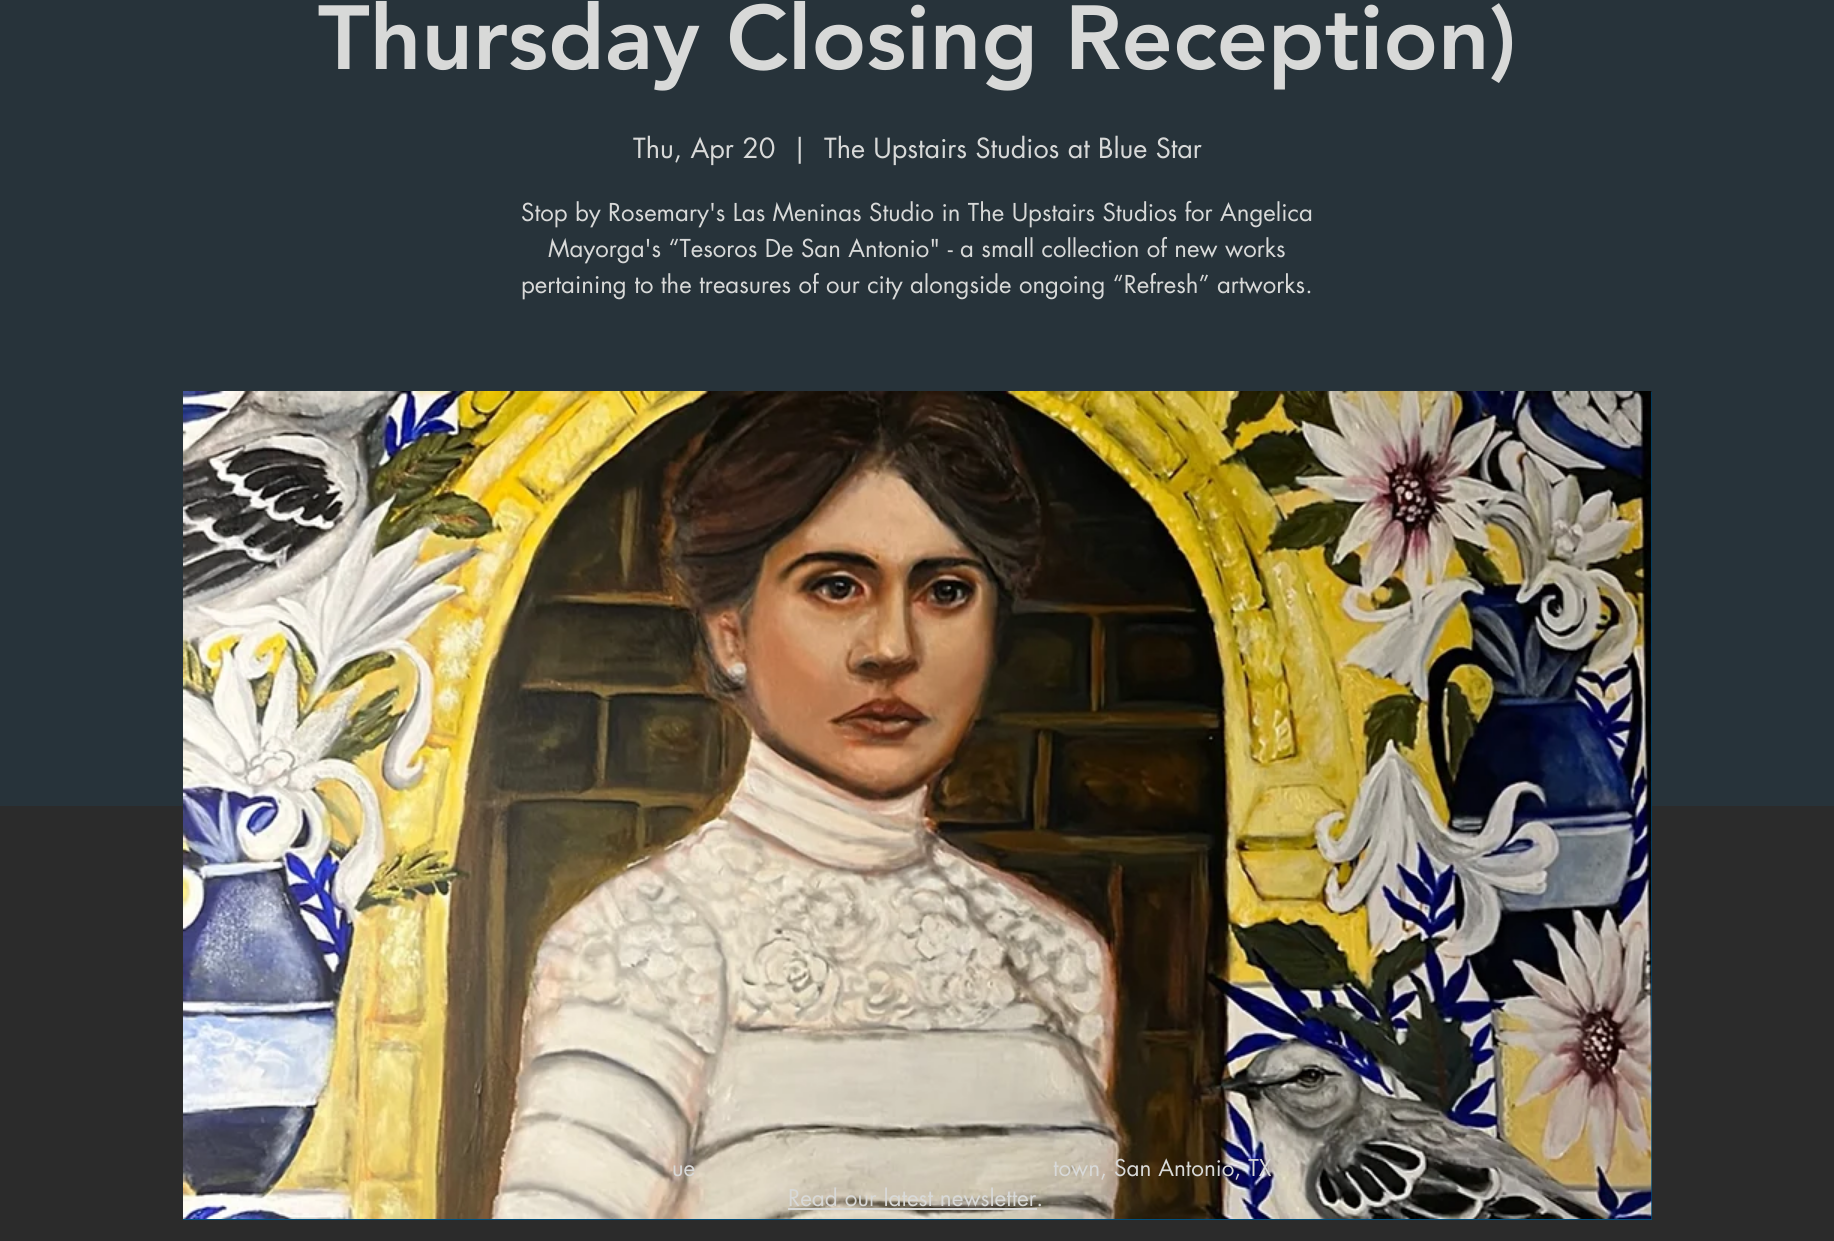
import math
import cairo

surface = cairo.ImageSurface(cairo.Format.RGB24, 1834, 1241)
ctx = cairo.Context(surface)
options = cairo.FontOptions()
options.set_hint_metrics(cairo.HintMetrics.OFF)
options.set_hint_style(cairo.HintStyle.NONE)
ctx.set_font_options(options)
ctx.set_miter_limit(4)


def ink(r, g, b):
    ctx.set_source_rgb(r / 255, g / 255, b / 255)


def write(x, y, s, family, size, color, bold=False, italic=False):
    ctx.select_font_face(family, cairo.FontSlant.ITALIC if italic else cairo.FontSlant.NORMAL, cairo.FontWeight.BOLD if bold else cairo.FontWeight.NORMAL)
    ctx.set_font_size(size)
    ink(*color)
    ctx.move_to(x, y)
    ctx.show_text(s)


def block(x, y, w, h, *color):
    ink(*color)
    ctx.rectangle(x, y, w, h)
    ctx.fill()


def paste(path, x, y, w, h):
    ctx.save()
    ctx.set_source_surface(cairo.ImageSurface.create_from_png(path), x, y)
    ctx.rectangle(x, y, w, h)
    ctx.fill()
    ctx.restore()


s1 = dict(family="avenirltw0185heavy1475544 Black", size=90, color=(216, 217, 216))
s2 = dict(family="futura", size=27, color=(216, 217, 216))
s3 = dict(family="futura", size=24, color=(216, 217, 216))
s4 = dict(family="futura", size=22.5, color=(216, 217, 216))

ink(43, 43, 43)
ctx.paint()
block(0, 0, 1834, 806, 39, 51, 58)
write(318, 69, "Thursday Closing Reception)", **s1)
write(633, 158, "Thu, Apr 20", **s2)
write(792, 158, "|", **s2)
write(824, 158, "The Upstairs Studios at Blue Star", **s2)
write(521, 221, "Stop by Rosemary's Las Meninas Studio in The Upstairs Studios for Angelica", **s3)
write(548, 257, "Mayorga's “Tesoros De San Antonio\" - a small collection of new works", **s3)
write(521, 293, "pertaining to the treasures of our city alongside ongoing “Refresh” artworks.", **s3)
block(183, 392, 1469, 828, 0, 80, 127)
paste("pic1.png", 183, 391, 1469, 828)
write(672, 1176, "ue", **s4)
write(1053, 1176, "town, San Antonio, TX", **s4)
write(788, 1206, "Read our latest newsletter.", **s4)
block(788, 1208, 249, 2, 216, 217, 216)
surface.write_to_png("screenshot.png")
